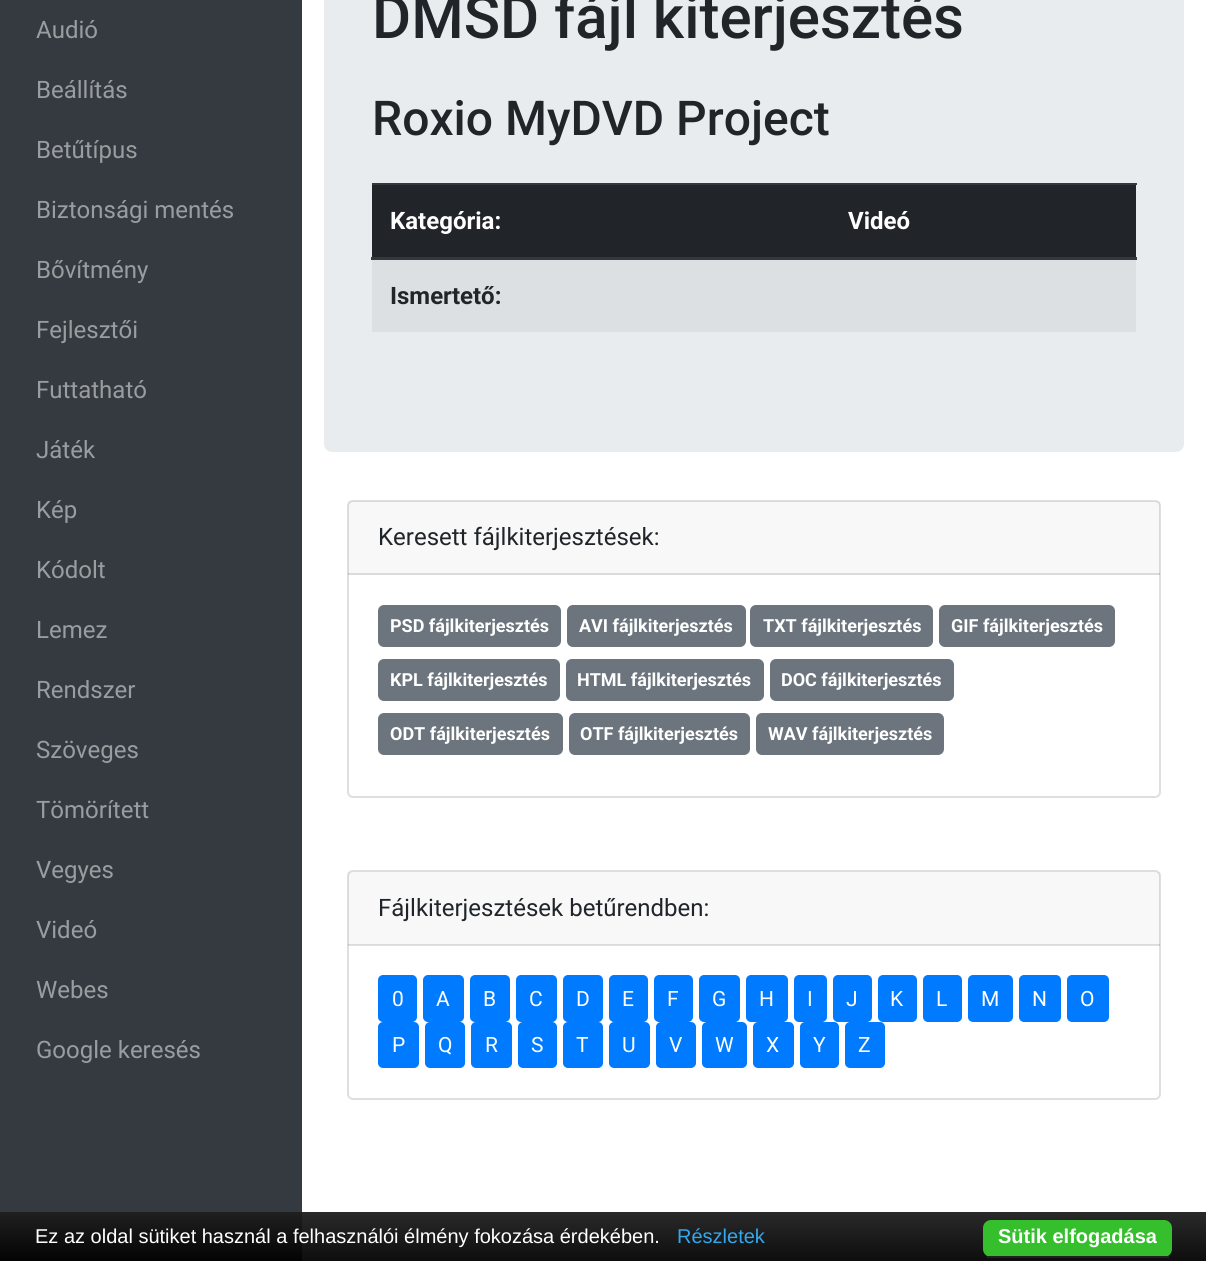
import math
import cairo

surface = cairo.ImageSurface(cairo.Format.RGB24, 1206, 1261)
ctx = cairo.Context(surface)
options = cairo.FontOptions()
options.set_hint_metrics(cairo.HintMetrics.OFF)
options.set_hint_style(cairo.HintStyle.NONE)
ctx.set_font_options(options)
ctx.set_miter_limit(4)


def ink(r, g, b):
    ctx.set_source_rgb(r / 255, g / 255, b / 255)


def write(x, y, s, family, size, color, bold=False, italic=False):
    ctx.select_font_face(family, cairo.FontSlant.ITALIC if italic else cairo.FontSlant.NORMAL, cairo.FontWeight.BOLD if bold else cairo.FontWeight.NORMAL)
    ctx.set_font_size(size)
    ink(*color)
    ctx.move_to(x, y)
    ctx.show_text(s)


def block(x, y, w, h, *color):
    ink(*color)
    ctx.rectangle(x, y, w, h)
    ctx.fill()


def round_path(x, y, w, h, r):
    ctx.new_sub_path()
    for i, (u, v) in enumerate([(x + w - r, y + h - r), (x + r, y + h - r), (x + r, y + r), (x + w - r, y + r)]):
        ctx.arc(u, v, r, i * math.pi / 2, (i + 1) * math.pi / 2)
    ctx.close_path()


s1 = dict(family="Roboto", size=24, color=(154, 157, 160))
s2 = dict(family="Roboto Medium", size=60, color=(33, 37, 41))
s3 = dict(family="Roboto Medium", size=48, color=(33, 37, 41))
s4 = dict(family="Roboto", size=24, color=(255, 255, 255), bold=True)
s5 = dict(family="Roboto", size=24, color=(33, 37, 41), bold=True)
s6 = dict(family="Roboto", size=24, color=(33, 37, 41))
s7 = dict(family="Roboto", size=18, color=(255, 255, 255), bold=True)
s8 = dict(family="Roboto", size=21, color=(255, 255, 255))
s9 = dict(family="Liberation Sans", size=20, color=(255, 255, 255))
s10 = dict(family="Liberation Sans", size=20, color=(49, 168, 240))
s11 = dict(family="Liberation Sans", size=20, color=(255, 255, 255), bold=True)

ink(255, 255, 255)
ctx.paint()
block(0, 0, 302, 1261, 52, 58, 64)
write(36, 38, "Audió", **s1)
write(36, 98, "Beállítás", **s1)
write(36, 158, "Betűtípus", **s1)
write(36, 218, "Biztonsági mentés", **s1)
write(36, 278, "Bővítmény", **s1)
write(36, 338, "Fejlesztői", **s1)
write(36, 398, "Futtatható", **s1)
write(36, 458, "Játék", **s1)
write(36, 518, "Kép", **s1)
write(36, 578, "Kódolt", **s1)
write(36, 638, "Lemez", **s1)
write(36, 698, "Rendszer", **s1)
write(36, 758, "Szöveges", **s1)
write(36, 818, "Tömörített", **s1)
write(36, 878, "Vegyes", **s1)
write(36, 938, "Videó", **s1)
write(36, 998, "Webes", **s1)
write(36, 1058, "Google keresés", **s1)
ink(233, 236, 239)
round_path(324, -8, 860, 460, 8)
ctx.fill()
write(372, 38, "DMSD fájl kiterjesztés", **s2)
write(372, 135, "Roxio MyDVD Project", **s3)
block(372, 185, 764, 72, 33, 37, 41)
write(390, 229, "Kategória:", **s4)
block(372, 183, 765, 2, 50, 56, 62)
block(371, 257, 766, 3, 50, 56, 62)
write(848, 229, "Videó", **s4)
block(372, 260, 764, 72, 221, 224, 227)
write(390, 304, "Ismertető:", **s5)
round_path(348, 501, 812, 296, 5)
ink(223, 223, 223)
ctx.stroke()
ctx.set_source_rgba(0, 0, 0, 0.03)
ctx.rectangle(348, 501, 812, 74)
ctx.fill()
ctx.set_source_rgba(0, 0, 0, 0.12)
ctx.rectangle(348, 573, 812, 2)
ctx.fill()
write(378, 545, "Keresett fájlkiterjesztések:", **s6)
ink(108, 117, 125)
round_path(378, 605, 183, 42, 6)
ctx.fill()
write(390, 632, "PSD fájlkiterjesztés", **s7)
ink(108, 117, 125)
round_path(567, 605, 179, 42, 6)
ctx.fill()
write(579, 632, "AVI fájlkiterjesztés", **s7)
ink(108, 117, 125)
round_path(750, 605, 183, 42, 6)
ctx.fill()
write(763, 632, "TXT fájlkiterjesztés", **s7)
ink(108, 117, 125)
round_path(939, 605, 176, 42, 6)
ctx.fill()
write(951, 632, "GIF fájlkiterjesztés", **s7)
ink(108, 117, 125)
round_path(378, 659, 182, 42, 6)
ctx.fill()
write(390, 686, "KPL fájlkiterjesztés", **s7)
ink(108, 117, 125)
round_path(566, 659, 198, 42, 6)
ctx.fill()
write(577, 686, "HTML fájlkiterjesztés", **s7)
ink(108, 117, 125)
round_path(770, 659, 184, 42, 6)
ctx.fill()
write(781, 686, "DOC fájlkiterjesztés", **s7)
ink(108, 117, 125)
round_path(378, 713, 185, 42, 6)
ctx.fill()
write(390, 740, "ODT fájlkiterjesztés", **s7)
ink(108, 117, 125)
round_path(569, 713, 181, 42, 6)
ctx.fill()
write(580, 740, "OTF fájlkiterjesztés", **s7)
ink(108, 117, 125)
round_path(756, 713, 188, 42, 6)
ctx.fill()
write(768, 740, "WAV fájlkiterjesztés", **s7)
round_path(348, 871, 812, 228, 5)
ink(223, 223, 223)
ctx.stroke()
ctx.set_source_rgba(0, 0, 0, 0.03)
ctx.rectangle(348, 872, 812, 73)
ctx.fill()
ctx.set_source_rgba(0, 0, 0, 0.12)
ctx.rectangle(348, 944, 812, 2)
ctx.fill()
write(378, 916, "Fájlkiterjesztések betűrendben:", **s6)
ink(0, 123, 255)
round_path(379, 976, 37, 45, 4)
ctx.fill_preserve()
ctx.stroke()
write(392, 1006, "0", **s8)
ink(0, 123, 255)
round_path(424, 976, 39, 45, 4)
ctx.fill_preserve()
ctx.stroke()
write(436, 1006, "A", **s8)
ink(0, 123, 255)
round_path(471, 976, 38, 45, 4)
ctx.fill_preserve()
ctx.stroke()
write(483, 1006, "B", **s8)
ink(0, 123, 255)
round_path(517, 976, 39, 45, 4)
ctx.fill_preserve()
ctx.stroke()
write(529, 1006, "C", **s8)
ink(0, 123, 255)
round_path(564, 976, 38, 45, 4)
ctx.fill_preserve()
ctx.stroke()
write(576, 1006, "D", **s8)
ink(0, 123, 255)
round_path(610, 976, 37, 45, 4)
ctx.fill_preserve()
ctx.stroke()
write(622, 1006, "E", **s8)
ink(0, 123, 255)
round_path(655, 976, 37, 45, 4)
ctx.fill_preserve()
ctx.stroke()
write(667, 1006, "F", **s8)
ink(0, 123, 255)
round_path(700, 976, 39, 45, 4)
ctx.fill_preserve()
ctx.stroke()
write(712, 1006, "G", **s8)
ink(0, 123, 255)
round_path(747, 976, 40, 45, 4)
ctx.fill_preserve()
ctx.stroke()
write(759, 1006, "H", **s8)
ink(0, 123, 255)
round_path(795, 976, 31, 45, 4)
ctx.fill_preserve()
ctx.stroke()
write(807, 1006, "I", **s8)
ink(0, 123, 255)
round_path(834, 976, 37, 45, 4)
ctx.fill_preserve()
ctx.stroke()
write(846, 1006, "J", **s8)
ink(0, 123, 255)
round_path(879, 976, 37, 45, 4)
ctx.fill_preserve()
ctx.stroke()
write(890, 1006, "K", **s8)
ink(0, 123, 255)
round_path(924, 976, 37, 45, 4)
ctx.fill_preserve()
ctx.stroke()
write(936, 1006, "L", **s8)
ink(0, 123, 255)
round_path(969, 976, 43, 45, 4)
ctx.fill_preserve()
ctx.stroke()
write(981, 1006, "M", **s8)
ink(0, 123, 255)
round_path(1020, 976, 40, 45, 4)
ctx.fill_preserve()
ctx.stroke()
write(1032, 1006, "N", **s8)
ink(0, 123, 255)
round_path(1068, 976, 40, 45, 4)
ctx.fill_preserve()
ctx.stroke()
write(1080, 1006, "O", **s8)
ink(0, 123, 255)
round_path(379, 1023, 39, 44, 4)
ctx.fill_preserve()
ctx.stroke()
write(392, 1052, "P", **s8)
ink(0, 123, 255)
round_path(426, 1023, 38, 44, 4)
ctx.fill_preserve()
ctx.stroke()
write(438, 1052, "Q", **s8)
ink(0, 123, 255)
round_path(472, 1023, 39, 44, 4)
ctx.fill_preserve()
ctx.stroke()
write(485, 1052, "R", **s8)
ink(0, 123, 255)
round_path(519, 1023, 37, 44, 4)
ctx.fill_preserve()
ctx.stroke()
write(531, 1052, "S", **s8)
ink(0, 123, 255)
round_path(564, 1023, 38, 44, 4)
ctx.fill_preserve()
ctx.stroke()
write(576, 1052, "T", **s8)
ink(0, 123, 255)
round_path(610, 1023, 39, 44, 4)
ctx.fill_preserve()
ctx.stroke()
write(622, 1052, "U", **s8)
ink(0, 123, 255)
round_path(657, 1023, 38, 44, 4)
ctx.fill_preserve()
ctx.stroke()
write(669, 1052, "V", **s8)
ink(0, 123, 255)
round_path(703, 1023, 43, 44, 4)
ctx.fill_preserve()
ctx.stroke()
write(715, 1052, "W", **s8)
ink(0, 123, 255)
round_path(754, 1023, 39, 44, 4)
ctx.fill_preserve()
ctx.stroke()
write(766, 1052, "X", **s8)
ink(0, 123, 255)
round_path(801, 1023, 37, 44, 4)
ctx.fill_preserve()
ctx.stroke()
write(813, 1052, "Y", **s8)
ink(0, 123, 255)
round_path(846, 1023, 38, 44, 4)
ctx.fill_preserve()
ctx.stroke()
write(858, 1052, "Z", **s8)
gradient = cairo.LinearGradient(603, 1212, 603, 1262)
gradient.add_color_stop_rgba(0, 0.118, 0.118, 0.118, 0.95)
gradient.add_color_stop_rgba(1, 0, 0, 0, 0.95)
ctx.set_source(gradient)
ctx.rectangle(0, 1212, 1206, 49)
ctx.fill()
write(35, 1243, "Ez az oldal sütiket használ a felhasználói élmény fokozása érdekében.", **s9)
write(677, 1243, "Részletek", **s10)
ink(54, 191, 45)
round_path(983, 1220, 189, 37, 8)
ctx.fill()
block(987, 1256, 182, 2, 34, 34, 34)
write(998, 1243, "Sütik elfogadása", **s11)
surface.write_to_png("screenshot.png")
